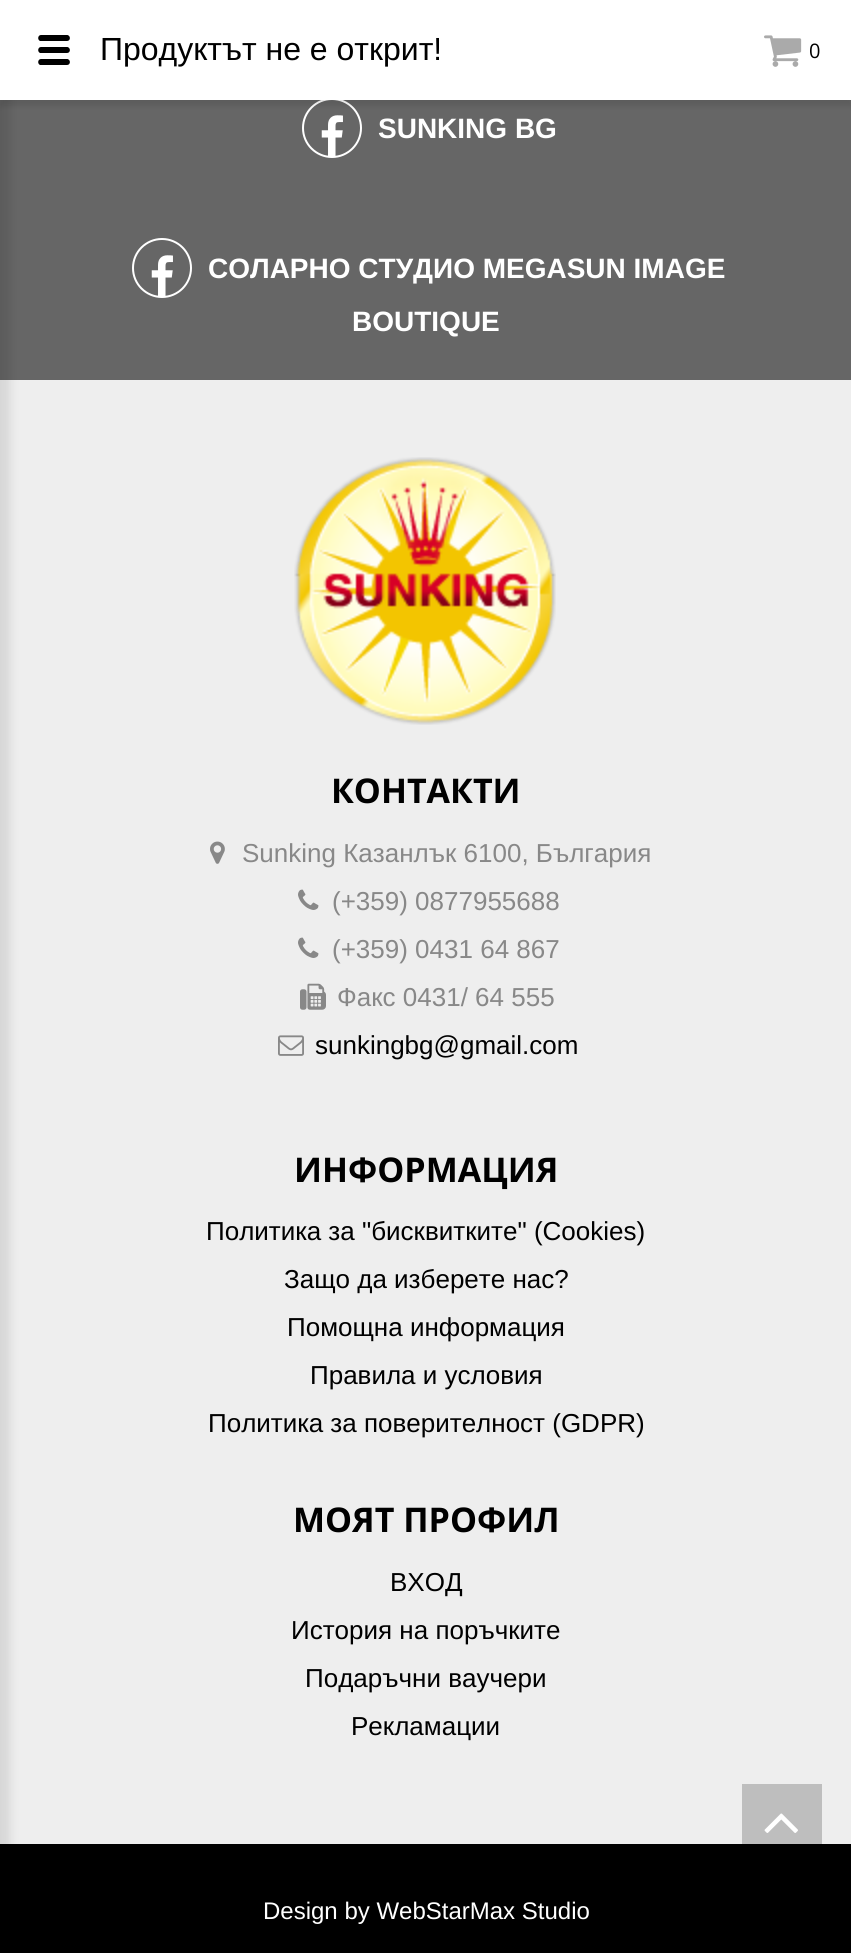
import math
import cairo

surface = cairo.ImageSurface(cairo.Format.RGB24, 851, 1953)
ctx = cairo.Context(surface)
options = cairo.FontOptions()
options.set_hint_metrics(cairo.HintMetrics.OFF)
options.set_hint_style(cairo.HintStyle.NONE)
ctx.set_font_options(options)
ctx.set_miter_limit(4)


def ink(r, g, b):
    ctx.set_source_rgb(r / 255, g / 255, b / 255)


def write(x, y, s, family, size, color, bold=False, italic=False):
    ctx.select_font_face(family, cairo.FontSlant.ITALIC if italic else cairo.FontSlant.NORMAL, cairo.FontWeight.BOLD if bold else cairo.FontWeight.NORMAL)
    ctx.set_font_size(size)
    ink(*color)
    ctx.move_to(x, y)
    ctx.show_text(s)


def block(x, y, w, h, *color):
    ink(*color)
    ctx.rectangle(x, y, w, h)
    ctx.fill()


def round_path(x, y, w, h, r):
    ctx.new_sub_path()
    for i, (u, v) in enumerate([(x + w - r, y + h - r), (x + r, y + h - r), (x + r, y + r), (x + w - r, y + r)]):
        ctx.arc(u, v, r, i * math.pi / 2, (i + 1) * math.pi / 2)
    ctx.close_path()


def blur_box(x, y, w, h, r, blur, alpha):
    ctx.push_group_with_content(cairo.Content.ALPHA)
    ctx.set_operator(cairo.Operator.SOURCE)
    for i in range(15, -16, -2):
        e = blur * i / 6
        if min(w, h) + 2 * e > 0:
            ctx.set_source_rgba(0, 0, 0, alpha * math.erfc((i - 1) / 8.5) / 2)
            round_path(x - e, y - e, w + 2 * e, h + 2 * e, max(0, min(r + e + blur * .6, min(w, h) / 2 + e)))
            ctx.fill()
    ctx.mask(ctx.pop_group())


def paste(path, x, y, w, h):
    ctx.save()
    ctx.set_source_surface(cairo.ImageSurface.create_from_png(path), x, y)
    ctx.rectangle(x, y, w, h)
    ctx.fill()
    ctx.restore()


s1 = dict(family="Liberation Sans", size=32, color=(0, 0, 0))
s2 = dict(family="Open Sans", size=20, color=(0, 0, 0))
s3 = dict(family="Liberation Sans", size=28, color=(255, 255, 255), bold=True)
s4 = dict(family="Open Sans", size=34, color=(0, 0, 0), bold=True)
s5 = dict(family="Liberation Sans", size=26, color=(136, 136, 136))
s6 = dict(family="Liberation Sans", size=26, color=(0, 0, 0))
s7 = dict(family="Liberation Sans", size=24, color=(255, 255, 255))

ink(102, 102, 102)
ctx.paint()
block(0, 380, 851, 1464, 238, 238, 238)
block(0, 1844, 851, 109, 0, 0, 0)
ink(0, 0, 0)
blur_box(-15, -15, 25, 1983, 0, 5, 0.1)
ctx.arc(332, 128, 29, 0, 2 * math.pi)
ink(255, 255, 255)
ctx.stroke()
paste("pic2.png", 321, 115, 22, 41)
ink(0, 0, 0)
blur_box(0, 6, 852, 100, 0, 3, 0.1)
block(0, 0, 851, 100, 255, 255, 255)
ink(0, 0, 0)
ctx.new_path()
ctx.move_to(67, 53)
ctx.line_to(40, 53)
ctx.curve_to(37, 51.5, 38, 47, 41, 47)
ctx.line_to(67.5, 47)
ctx.curve_to(71, 48, 70.5, 53, 67, 53)
ctx.close_path()
ctx.move_to(67, 65)
ctx.line_to(40, 65)
ctx.curve_to(37, 63.5, 38, 59, 41, 59)
ctx.line_to(67.5, 59)
ctx.curve_to(71, 60, 70.5, 65, 67, 65)
ctx.close_path()
ctx.move_to(67, 41)
ctx.line_to(40, 41)
ctx.curve_to(37, 39.5, 38, 35, 41, 35)
ctx.line_to(67.5, 35)
ctx.curve_to(71, 36, 70.5, 41, 67, 41)
ctx.close_path()
ctx.fill()
write(100, 60, "Продуктът не е открит!", **s1)
paste("pic1.png", 764, 35, 38, 32)
write(809, 58, "0", **s2)
write(378, 138, "SUNKING BG", **s3)
ctx.new_path()
ctx.arc(162, 268, 29, 0, 2 * math.pi)
ctx.stroke()
paste("pic2.png", 151, 255, 22, 41)
write(208, 278, "СОЛАРНО СТУДИО MEGASUN IMAGE", **s3)
write(352, 331, "BOUTIQUE", **s3)
block(742, 1784, 80, 60, 190, 190, 190)
paste("pic3.png", 294, 457, 262, 268)
write(331, 803, "КОНТАКТИ", **s4)
paste("pic4.png", 210, 841, 15, 23)
write(242, 862, "Sunking Казанлък 6100, България", **s5)
paste("pic5.png", 298, 889, 21, 21)
write(332, 910, "(+359) 0877955688", **s5)
paste("pic5.png", 298, 937, 21, 21)
write(332, 958, "(+359) 0431 64 867", **s5)
paste("pic6.png", 300, 983, 26, 27)
write(337, 1006, "Факс 0431/ 64 555", **s5)
paste("pic7.png", 278, 1035, 26, 21)
write(315, 1054, "sunkingbg@gmail.com", **s6)
write(294, 1182, "ИНФОРМАЦИЯ", **s4)
write(206, 1240, "Политика за \"бисквитките\" (Cookies)", **s6)
write(284, 1288, "Защо да изберете нас?", **s6)
write(287, 1336, "Помощна информация", **s6)
write(310, 1384, "Правила и условия", **s6)
write(208, 1432, "Политика за поверителност (GDPR)", **s6)
write(293, 1532, "МОЯТ ПРОФИЛ", **s4)
write(390, 1591, "ВХОД", **s6)
write(291, 1639, "История на поръчките", **s6)
write(305, 1687, "Подаръчни ваучери", **s6)
write(351, 1735, "Рекламации", **s6)
write(263, 1919, "Design by WebStarMax Studio", **s7)
paste("pic8.png", 764, 1813, 34, 20)
surface.write_to_png("screenshot.png")
